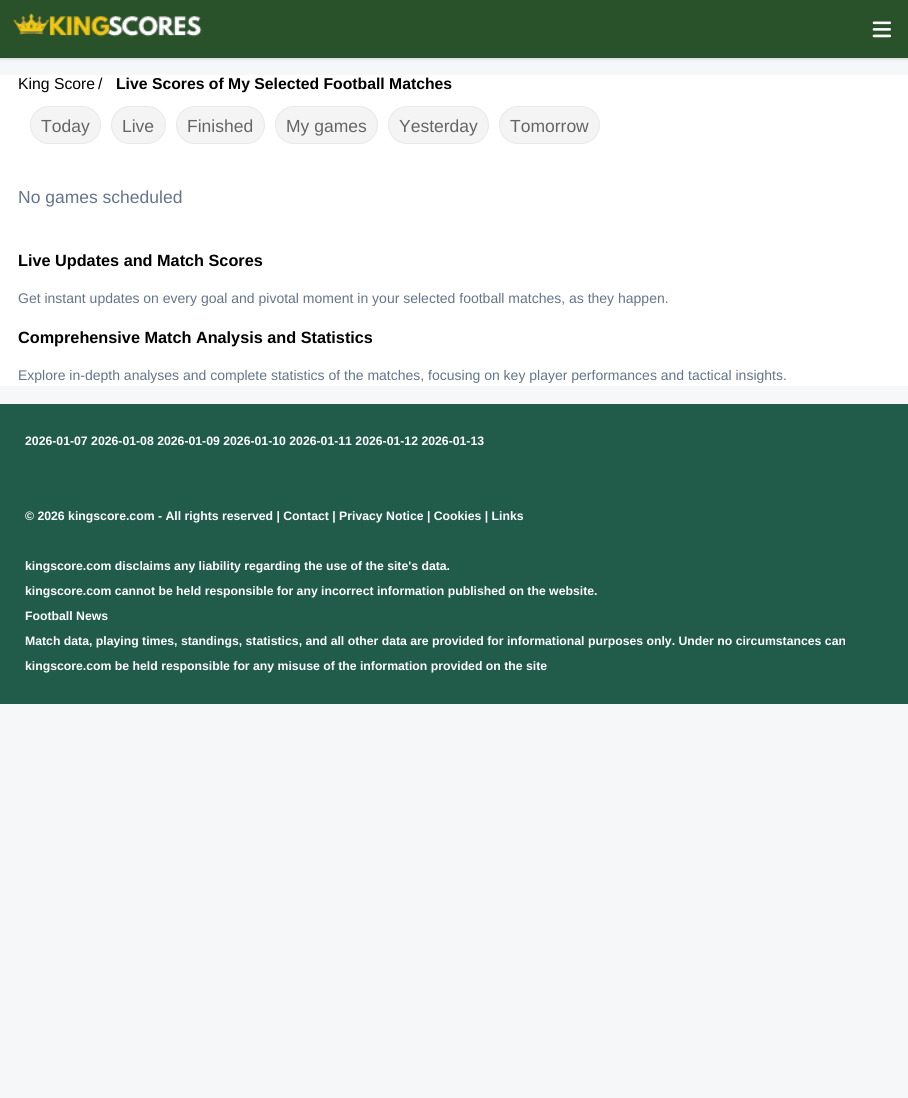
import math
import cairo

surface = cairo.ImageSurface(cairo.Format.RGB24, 908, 1098)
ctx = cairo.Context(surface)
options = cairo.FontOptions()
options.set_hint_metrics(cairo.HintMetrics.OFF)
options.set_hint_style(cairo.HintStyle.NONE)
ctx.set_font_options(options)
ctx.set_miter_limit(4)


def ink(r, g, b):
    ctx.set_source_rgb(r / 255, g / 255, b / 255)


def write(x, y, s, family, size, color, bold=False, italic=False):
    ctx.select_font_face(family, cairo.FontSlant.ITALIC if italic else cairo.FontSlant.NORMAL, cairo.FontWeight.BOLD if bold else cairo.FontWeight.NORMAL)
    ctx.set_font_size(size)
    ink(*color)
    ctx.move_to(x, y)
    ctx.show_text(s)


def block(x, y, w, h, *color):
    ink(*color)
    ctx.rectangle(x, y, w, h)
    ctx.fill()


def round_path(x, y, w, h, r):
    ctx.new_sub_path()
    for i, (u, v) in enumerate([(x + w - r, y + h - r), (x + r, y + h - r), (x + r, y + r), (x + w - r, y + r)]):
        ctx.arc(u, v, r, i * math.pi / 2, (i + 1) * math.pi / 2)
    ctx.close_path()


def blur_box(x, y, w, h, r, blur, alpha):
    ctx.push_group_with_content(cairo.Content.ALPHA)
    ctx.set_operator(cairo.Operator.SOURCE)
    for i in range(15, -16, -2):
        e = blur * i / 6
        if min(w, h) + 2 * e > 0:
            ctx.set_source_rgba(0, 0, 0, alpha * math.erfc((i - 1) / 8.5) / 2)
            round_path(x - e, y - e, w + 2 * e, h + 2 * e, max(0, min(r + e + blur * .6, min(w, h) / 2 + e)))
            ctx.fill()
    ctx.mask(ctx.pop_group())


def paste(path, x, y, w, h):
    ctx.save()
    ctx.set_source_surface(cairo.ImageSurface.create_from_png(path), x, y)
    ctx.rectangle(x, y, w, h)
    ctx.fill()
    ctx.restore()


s1 = dict(family="Liberation Sans", size=15.75, color=(0, 0, 0))
s2 = dict(family="Liberation Sans", size=15.75, color=(0, 0, 0), bold=True)
s3 = dict(family="Liberation Sans", size=17.5, color=(101, 101, 101))
s4 = dict(family="Liberation Sans", size=17.5, color=(100, 116, 139))
s5 = dict(family="Liberation Sans", size=16.25, color=(0, 0, 0), bold=True)
s6 = dict(family="Liberation Sans", size=14, color=(100, 116, 139))
s7 = dict(family="Liberation Sans", size=12.25, color=(255, 255, 255), bold=True)

ink(245, 247, 249)
ctx.paint()
ink(0, 0, 0)
blur_box(0, 1, 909, 58, 0, 1, 0.06)
blur_box(0, 1, 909, 58, 0, 2, 0.1)
block(0, 0, 908, 58, 41, 81, 42)
paste("pic1.png", 13, 13, 189, 24)
paste("pic2.png", 872, 21, 19, 17)
block(0, 75, 908, 311, 255, 255, 255)
write(18, 89, "King Score", **s1)
write(98, 89, "/", **s1)
write(116, 89, "Live Scores of My Selected Football Matches", **s2)
ink(244, 244, 244)
round_path(30.5, 106.5, 70, 37, 18.5)
ctx.fill_preserve()
ink(233, 232, 232)
ctx.set_line_width(1)
ctx.stroke()
write(41, 132, "Today", **s3)
ink(244, 244, 244)
round_path(111.5, 106.5, 54, 37, 18.5)
ctx.fill_preserve()
ink(233, 232, 232)
ctx.stroke()
write(122, 132, "Live", **s3)
ink(244, 244, 244)
round_path(176.5, 106.5, 88, 37, 18.5)
ctx.fill_preserve()
ink(233, 232, 232)
ctx.stroke()
write(187, 132, "Finished", **s3)
ink(244, 244, 244)
round_path(275.5, 106.5, 102, 37, 18.5)
ctx.fill_preserve()
ink(233, 232, 232)
ctx.stroke()
write(286, 132, "My games", **s3)
ink(244, 244, 244)
round_path(388.5, 106.5, 100, 37, 18.5)
ctx.fill_preserve()
ink(233, 232, 232)
ctx.stroke()
write(399, 132, "Yesterday", **s3)
ink(244, 244, 244)
round_path(499.5, 106.5, 100, 37, 18.5)
ctx.fill_preserve()
ink(233, 232, 232)
ctx.stroke()
write(510, 132, "Tomorrow", **s3)
write(18, 203, "No games scheduled", **s4)
write(18, 266, "Live Updates and Match Scores", **s5)
write(18, 303, "Get instant updates on every goal and pivotal moment in your selected football matches, as they happen.", **s6)
write(18, 343, "Comprehensive Match Analysis and Statistics", **s5)
write(18, 380, "Explore in-depth analyses and complete statistics of the matches, focusing on key player performances and tactical insights.", **s6)
block(0, 404, 908, 300, 33, 92, 74)
write(25, 445, "2026-01-07 2026-01-08 2026-01-09 2026-01-10 2026-01-11 2026-01-12 2026-01-13", **s7)
write(25, 520, "© 2026 kingscore.com - All rights reserved | Contact | Privacy Notice | Cookies | Links", **s7)
write(25, 570, "kingscore.com disclaims any liability regarding the use of the site's data.", **s7)
write(25, 595, "kingscore.com cannot be held responsible for any incorrect information published on the website.", **s7)
write(25, 620, "Football News", **s7)
write(25, 645, "Match data, playing times, standings, statistics, and all other data are provided for informational purposes only. Under no circumstances can", **s7)
write(25, 670, "kingscore.com be held responsible for any misuse of the information provided on the site", **s7)
surface.write_to_png("screenshot.png")
